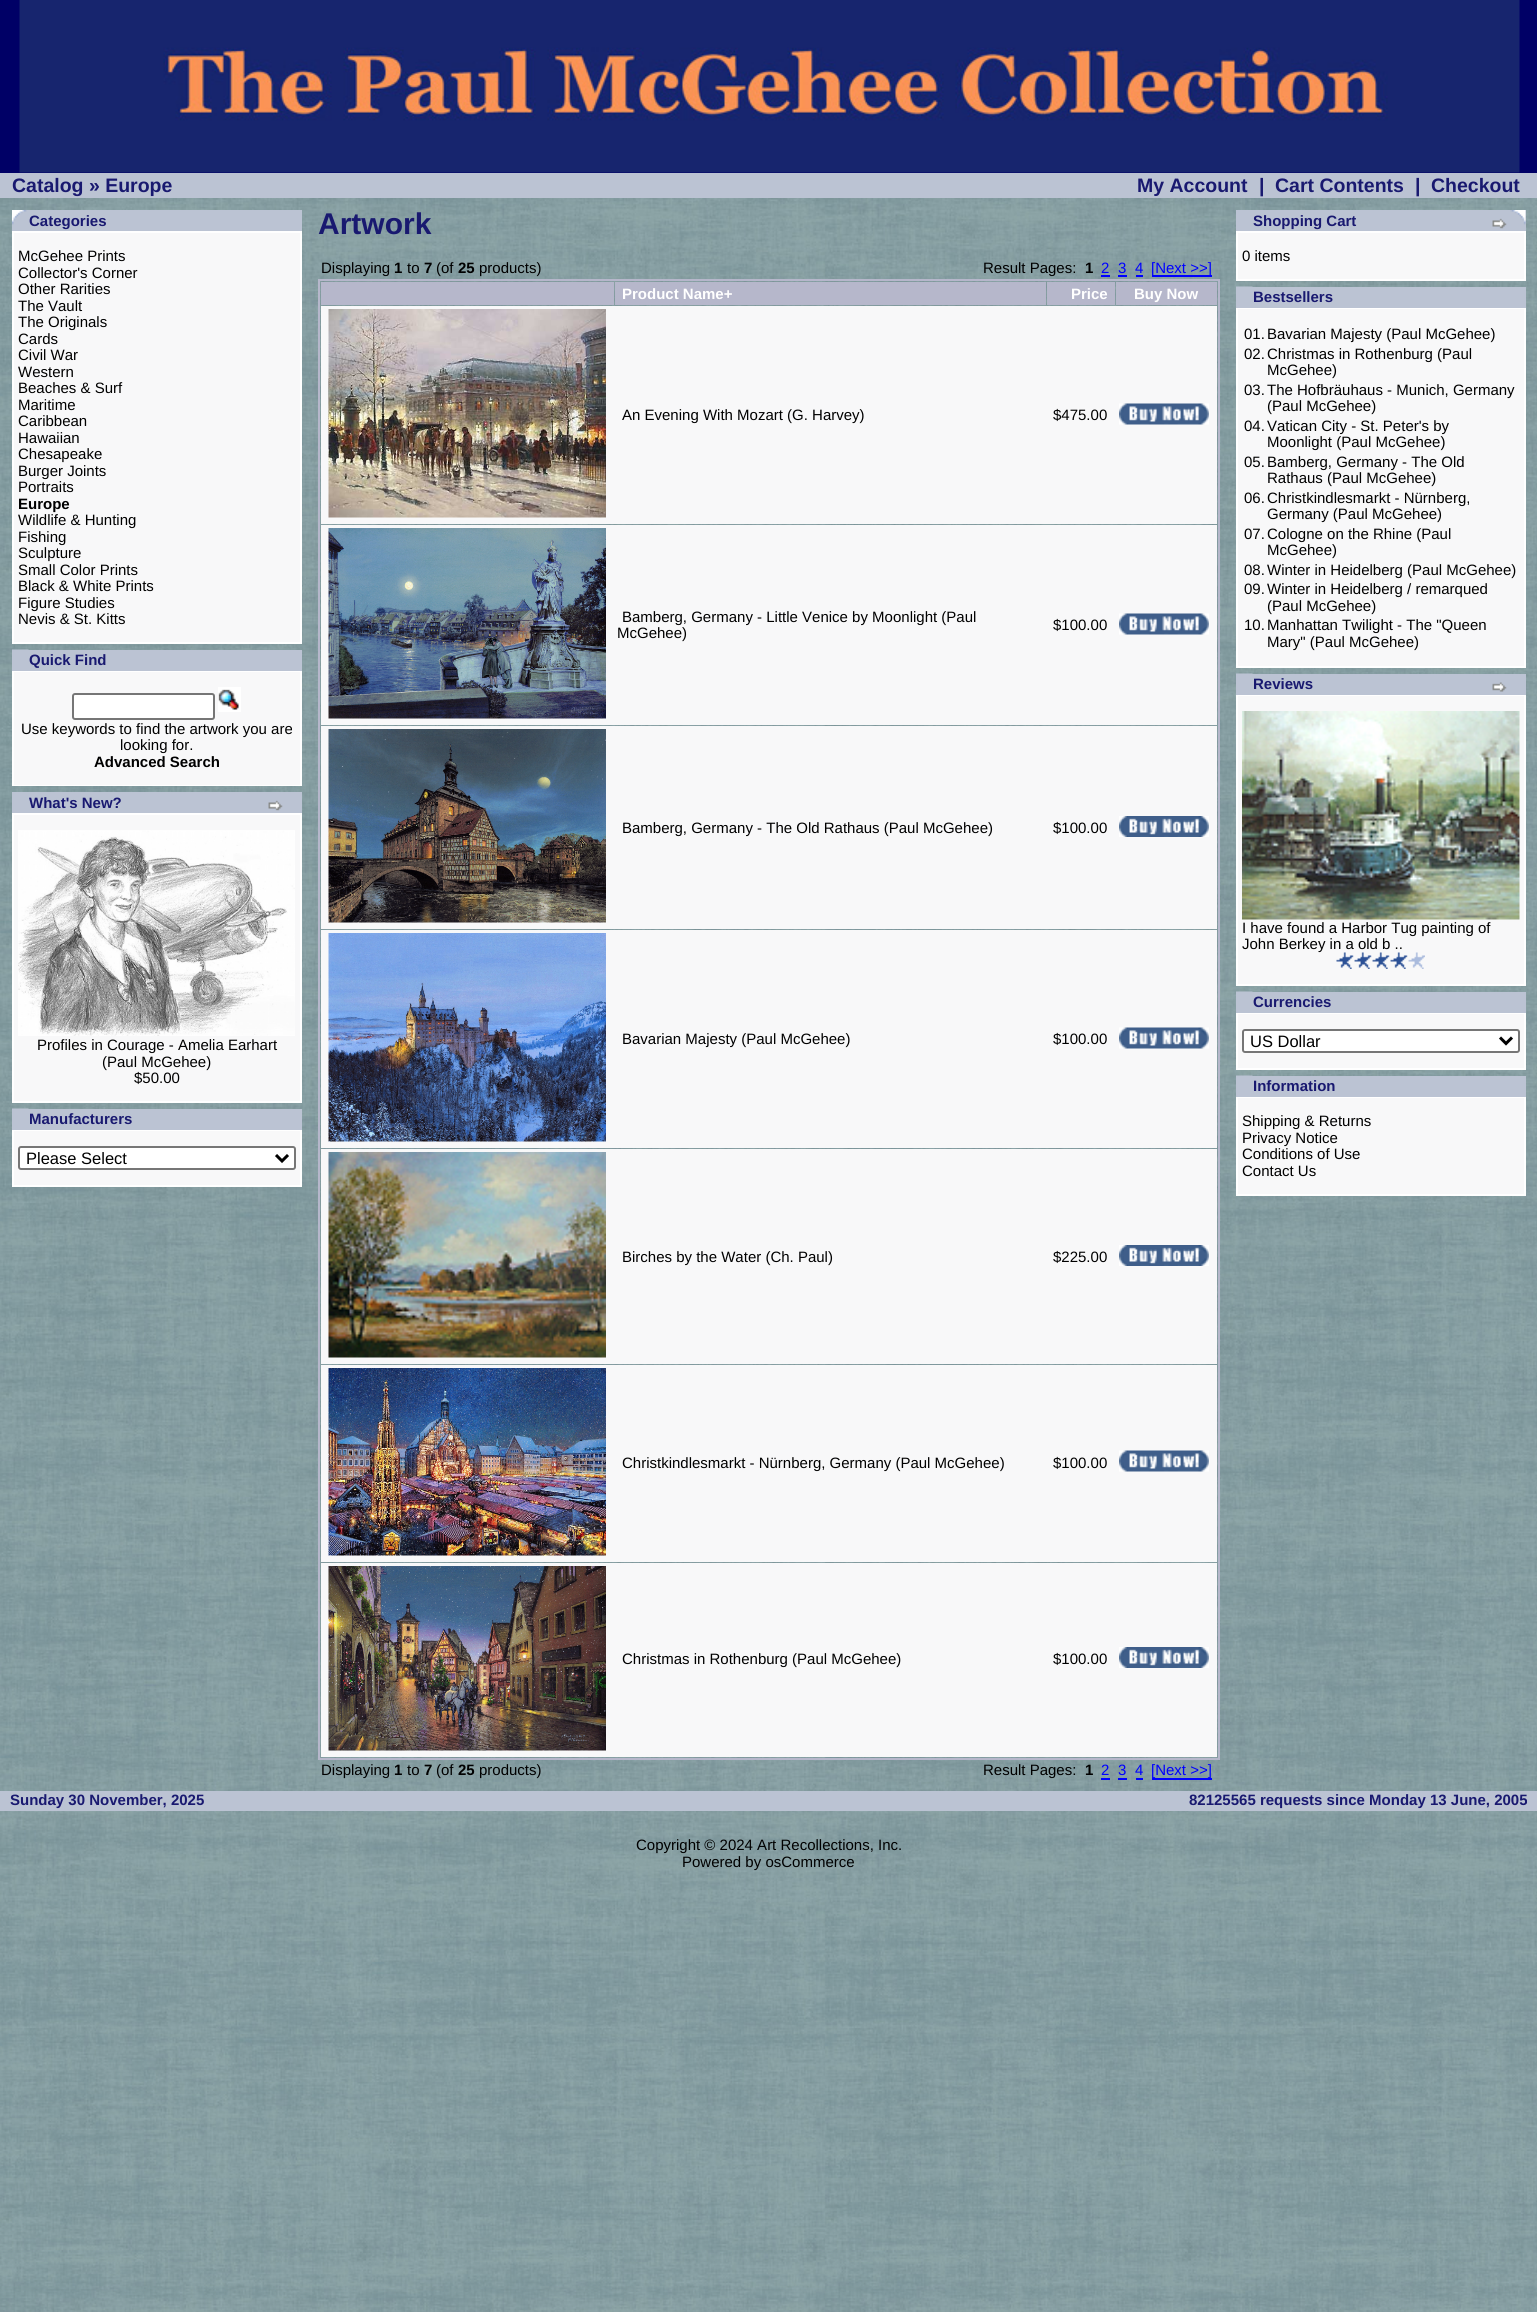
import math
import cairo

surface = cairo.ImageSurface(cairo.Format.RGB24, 1537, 2312)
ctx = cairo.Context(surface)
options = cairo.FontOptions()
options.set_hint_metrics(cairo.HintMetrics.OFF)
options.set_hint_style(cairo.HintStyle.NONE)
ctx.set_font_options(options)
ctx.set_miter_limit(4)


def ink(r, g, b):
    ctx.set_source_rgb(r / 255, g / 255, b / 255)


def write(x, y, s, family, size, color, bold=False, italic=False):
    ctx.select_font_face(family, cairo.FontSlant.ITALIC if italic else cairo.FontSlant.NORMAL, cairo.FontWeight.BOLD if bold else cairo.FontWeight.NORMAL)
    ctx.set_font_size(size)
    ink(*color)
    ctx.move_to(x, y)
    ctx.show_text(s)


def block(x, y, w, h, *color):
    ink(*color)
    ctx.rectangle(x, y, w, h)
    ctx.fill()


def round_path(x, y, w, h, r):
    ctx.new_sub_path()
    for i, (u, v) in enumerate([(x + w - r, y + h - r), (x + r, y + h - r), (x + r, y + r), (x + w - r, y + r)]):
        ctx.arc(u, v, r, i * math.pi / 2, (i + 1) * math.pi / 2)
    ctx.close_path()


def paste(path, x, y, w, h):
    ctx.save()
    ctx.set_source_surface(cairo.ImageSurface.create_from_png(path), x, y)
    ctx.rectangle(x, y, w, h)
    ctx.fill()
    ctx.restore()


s1 = dict(family="Liberation Sans", size=19.5, color=(25, 25, 112), bold=True)
s2 = dict(family="Liberation Sans", size=15, color=(25, 25, 112), bold=True)
s3 = dict(family="Liberation Sans", size=15, color=(0, 0, 0))
s4 = dict(family="Liberation Sans", size=15, color=(0, 0, 0), bold=True)
s5 = dict(family="Liberation Sans", size=16.5, color=(0, 0, 0))
s6 = dict(family="Liberation Sans", size=30, color=(25, 25, 112), bold=True)
s7 = dict(family="Liberation Sans", size=15, color=(0, 0, 255))
s8 = dict(family="Liberation Sans", size=15, color=(255, 255, 255), bold=True)

ink(255, 255, 255)
ctx.paint()
paste("pic1.png", 0, 198, 1537, 2114)
block(0, 0, 1537, 173, 0, 0, 102)
paste("pic2.png", 19, 0, 1501, 173)
block(0, 173, 1537, 25, 187, 195, 211)
write(12, 192, "Catalog » Europe", **s1)
write(1137, 192, "My Account", **s1)
write(1259, 192, "|", **s1)
write(1275, 192, "Cart Contents", **s1)
write(1415, 192, "|", **s1)
write(1431, 192, "Checkout", **s1)
block(12, 210, 290, 21, 187, 195, 211)
paste("pic3.png", 12, 210, 15, 15)
write(29, 226, "Categories", **s2)
block(12, 231, 290, 413, 255, 255, 255)
block(14, 233, 286, 409, 248, 248, 249)
write(18, 261, "McGehee Prints", **s3)
write(18, 278, "Collector's Corner", **s3)
write(18, 294, "Other Rarities", **s3)
write(18, 311, "The Vault", **s3)
write(18, 327, "The Originals", **s3)
write(18, 344, "Cards", **s3)
write(18, 360, "Civil War", **s3)
write(18, 377, "Western", **s3)
write(18, 393, "Beaches & Surf", **s3)
write(18, 410, "Maritime", **s3)
write(18, 426, "Caribbean", **s3)
write(18, 443, "Hawaiian", **s3)
write(18, 459, "Chesapeake", **s3)
write(18, 476, "Burger Joints", **s3)
write(18, 492, "Portraits", **s3)
write(18, 509, "Europe", **s4)
write(18, 525, "Wildlife & Hunting", **s3)
write(18, 542, "Fishing", **s3)
write(18, 558, "Sculpture", **s3)
write(18, 575, "Small Color Prints", **s3)
write(18, 591, "Black & White Prints", **s3)
write(18, 608, "Figure Studies", **s3)
write(18, 624, "Nevis & St. Kitts", **s3)
block(12, 650, 290, 21, 187, 195, 211)
paste("pic4.png", 12, 649, 17, 1)
write(29, 665, "Quick Find", **s2)
block(12, 671, 290, 115, 255, 255, 255)
block(14, 672, 286, 113, 248, 248, 249)
ink(255, 255, 255)
round_path(73, 694, 141, 25, 2)
ctx.fill_preserve()
ink(118, 118, 118)
ctx.stroke()
paste("pic5.png", 218, 687, 23, 25)
write(21, 734, "Use keywords to find the artwork you are", **s3)
write(120, 750, "looking for.", **s3)
write(94, 767, "Advanced Search", **s4)
block(12, 792, 290, 21, 187, 195, 211)
write(29, 808, "What's New?", **s2)
paste("pic6.png", 268, 800, 15, 11)
block(12, 813, 290, 290, 255, 255, 255)
block(14, 815, 286, 286, 248, 248, 249)
paste("pic7.png", 18, 830, 277, 206)
write(37, 1050, "Profiles in Courage - Amelia Earhart", **s3)
write(102, 1067, "(Paul McGehee)", **s3)
write(134, 1083, "$50.00", **s3)
block(12, 1109, 290, 21, 187, 195, 211)
paste("pic8.png", 12, 1108, 17, 1)
write(29, 1124, "Manufacturers", **s2)
block(12, 1130, 290, 57, 255, 255, 255)
block(14, 1131, 286, 54, 248, 248, 249)
ink(255, 255, 255)
round_path(19, 1147, 276, 22, 2)
ctx.fill_preserve()
ink(118, 118, 118)
ctx.stroke()
ctx.new_path()
ctx.move_to(276, 1155)
ctx.line_to(282, 1161)
ctx.line_to(288, 1155)
ink(0, 0, 0)
ctx.set_line_width(3)
ctx.stroke()
write(26, 1164, "Please Select", **s5)
write(318, 234, "Artwork", **s6)
write(321, 273, "Displaying", **s3)
write(394, 273, "1", **s4)
write(407, 273, "to", **s3)
write(424, 273, "7", **s4)
write(436, 273, "(of", **s3)
write(458, 273, "25", **s4)
write(479, 273, "products)", **s3)
write(983, 273, "Result Pages:", **s3)
write(1085, 273, "1", **s4)
write(1101, 273, "2", **s7)
block(1101, 275, 9, 2, 0, 0, 255)
write(1118, 273, "3", **s7)
block(1118, 275, 9, 2, 0, 0, 255)
write(1135, 273, "4", **s7)
block(1136, 275, 7, 2, 0, 0, 255)
block(1152, 275, 60, 2, 0, 0, 255)
write(1151, 273, "[Next >>]", **s7)
ctx.rectangle(319, 280, 900, 1479)
ink(182, 183, 203)
ctx.set_line_width(2)
ctx.stroke()
block(321, 282, 293, 23, 182, 183, 203)
block(615, 282, 431, 23, 182, 183, 203)
write(622, 299, "Product Name+", **s8)
block(1047, 282, 68, 23, 182, 183, 203)
write(1071, 299, "Price", **s8)
block(1116, 282, 101, 23, 182, 183, 203)
write(1134, 299, "Buy Now", **s8)
block(321, 306, 896, 218, 248, 248, 249)
paste("pic9.png", 328, 309, 278, 209)
write(622, 420, "An Evening With Mozart (G. Harvey)", **s3)
write(1053, 420, "$475.00", **s3)
paste("pic10.png", 1119, 403, 90, 22)
block(321, 525, 896, 200, 248, 248, 249)
paste("pic11.png", 328, 528, 278, 191)
write(622, 622, "Bamberg, Germany - Little Venice by Moonlight (Paul", **s3)
write(617, 638, "McGehee)", **s3)
write(1053, 630, "$100.00", **s3)
paste("pic10.png", 1119, 613, 90, 22)
block(321, 726, 896, 203, 248, 248, 249)
paste("pic12.png", 328, 729, 278, 194)
write(622, 833, "Bamberg, Germany - The Old Rathaus (Paul McGehee)", **s3)
write(1053, 833, "$100.00", **s3)
paste("pic13.png", 1119, 816, 90, 21)
block(321, 930, 896, 218, 248, 248, 249)
paste("pic14.png", 328, 933, 278, 209)
write(622, 1044, "Bavarian Majesty (Paul McGehee)", **s3)
write(1053, 1044, "$100.00", **s3)
paste("pic10.png", 1119, 1027, 90, 22)
block(321, 1149, 896, 215, 248, 248, 249)
paste("pic15.png", 328, 1152, 278, 206)
write(622, 1262, "Birches by the Water (Ch. Paul)", **s3)
write(1053, 1262, "$225.00", **s3)
paste("pic13.png", 1119, 1245, 90, 21)
block(321, 1365, 896, 197, 248, 248, 249)
paste("pic16.png", 328, 1368, 278, 188)
write(622, 1468, "Christkindlesmarkt - Nürnberg, Germany (Paul McGehee)", **s3)
write(1053, 1468, "$100.00", **s3)
paste("pic10.png", 1119, 1450, 90, 22)
block(321, 1563, 896, 194, 248, 248, 249)
paste("pic17.png", 328, 1566, 278, 185)
write(622, 1664, "Christmas in Rothenburg (Paul McGehee)", **s3)
write(1053, 1664, "$100.00", **s3)
paste("pic13.png", 1119, 1647, 90, 21)
write(321, 1775, "Displaying", **s3)
write(394, 1775, "1", **s4)
write(407, 1775, "to", **s3)
write(424, 1775, "7", **s4)
write(436, 1775, "(of", **s3)
write(458, 1775, "25", **s4)
write(479, 1775, "products)", **s3)
write(983, 1775, "Result Pages:", **s3)
write(1085, 1775, "1", **s4)
write(1101, 1775, "2", **s7)
block(1101, 1778, 9, 2, 0, 0, 255)
write(1118, 1775, "3", **s7)
block(1118, 1778, 9, 2, 0, 0, 255)
write(1135, 1775, "4", **s7)
block(1136, 1778, 7, 2, 0, 0, 255)
block(1152, 1778, 60, 2, 0, 0, 255)
write(1151, 1775, "[Next >>]", **s7)
block(1236, 210, 290, 21, 187, 195, 211)
write(1253, 226, "Shopping Cart", **s2)
paste("pic6.png", 1492, 218, 15, 11)
paste("pic18.png", 1510, 210, 16, 15)
block(1236, 231, 290, 50, 255, 255, 255)
block(1238, 233, 286, 46, 248, 248, 249)
write(1242, 261, "0 items", **s3)
block(1236, 287, 290, 21, 187, 195, 211)
paste("pic19.png", 1236, 286, 17, 1)
write(1253, 302, "Bestsellers", **s2)
block(1236, 308, 290, 360, 255, 255, 255)
block(1238, 309, 286, 357, 248, 248, 249)
write(1244, 339, "01.", **s3)
write(1267, 339, "Bavarian Majesty (Paul McGehee)", **s3)
write(1244, 359, "02.", **s3)
write(1267, 359, "Christmas in Rothenburg (Paul", **s3)
write(1267, 375, "McGehee)", **s3)
write(1244, 395, "03.", **s3)
write(1267, 395, "The Hofbräuhaus - Munich, Germany", **s3)
write(1267, 411, "(Paul McGehee)", **s3)
write(1244, 431, "04.", **s3)
write(1267, 431, "Vatican City - St. Peter's by", **s3)
write(1267, 447, "Moonlight (Paul McGehee)", **s3)
write(1244, 467, "05.", **s3)
write(1267, 467, "Bamberg, Germany - The Old", **s3)
write(1267, 483, "Rathaus (Paul McGehee)", **s3)
write(1244, 503, "06.", **s3)
write(1267, 503, "Christkindlesmarkt - Nürnberg,", **s3)
write(1267, 519, "Germany (Paul McGehee)", **s3)
write(1244, 539, "07.", **s3)
write(1267, 539, "Cologne on the Rhine (Paul", **s3)
write(1267, 555, "McGehee)", **s3)
write(1244, 575, "08.", **s3)
write(1267, 575, "Winter in Heidelberg (Paul McGehee)", **s3)
write(1244, 594, "09.", **s3)
write(1267, 594, "Winter in Heidelberg / remarqued", **s3)
write(1267, 611, "(Paul McGehee)", **s3)
write(1244, 630, "10.", **s3)
write(1267, 630, "Manhattan Twilight - The \"Queen", **s3)
write(1267, 647, "Mary\" (Paul McGehee)", **s3)
block(1236, 674, 290, 21, 187, 195, 211)
paste("pic20.png", 1236, 673, 17, 1)
write(1253, 689, "Reviews", **s2)
paste("pic21.png", 1492, 682, 15, 10)
block(1236, 695, 290, 291, 255, 255, 255)
block(1238, 696, 286, 288, 248, 248, 249)
paste("pic22.png", 1242, 711, 278, 209)
write(1242, 933, "I have found a Harbor Tug painting of", **s3)
write(1242, 949, "John Berkey in a old b ..", **s3)
paste("pic23.png", 1336, 952, 89, 17)
block(1236, 992, 290, 21, 187, 195, 211)
paste("pic24.png", 1236, 991, 17, 1)
write(1253, 1007, "Currencies", **s2)
block(1236, 1013, 290, 57, 255, 255, 255)
block(1238, 1014, 286, 54, 248, 248, 249)
ink(255, 255, 255)
round_path(1243, 1030, 276, 22, 2)
ctx.fill_preserve()
ink(118, 118, 118)
ctx.stroke()
ctx.new_path()
ctx.move_to(1500, 1037.5)
ctx.line_to(1506, 1043.5)
ctx.line_to(1512, 1037.5)
ink(0, 0, 0)
ctx.set_line_width(3)
ctx.stroke()
write(1250, 1047, "US Dollar", **s5)
block(1236, 1076, 290, 21, 187, 195, 211)
paste("pic25.png", 1236, 1075, 17, 1)
write(1253, 1091, "Information", **s2)
block(1236, 1097, 290, 99, 255, 255, 255)
block(1238, 1098, 286, 96, 248, 248, 249)
write(1242, 1126, "Shipping & Returns", **s3)
write(1242, 1143, "Privacy Notice", **s3)
write(1242, 1159, "Conditions of Use", **s3)
write(1242, 1176, "Contact Us", **s3)
block(0, 1791, 1537, 20, 187, 195, 211)
write(10, 1805, "Sunday 30 November, 2025", **s2)
write(1189, 1805, "82125565 requests since Monday 13 June, 2005", **s2)
write(636, 1850, "Copyright © 2024 Art Recollections, Inc.", **s3)
write(682, 1867, "Powered by osCommerce", **s3)
surface.write_to_png("screenshot.png")
